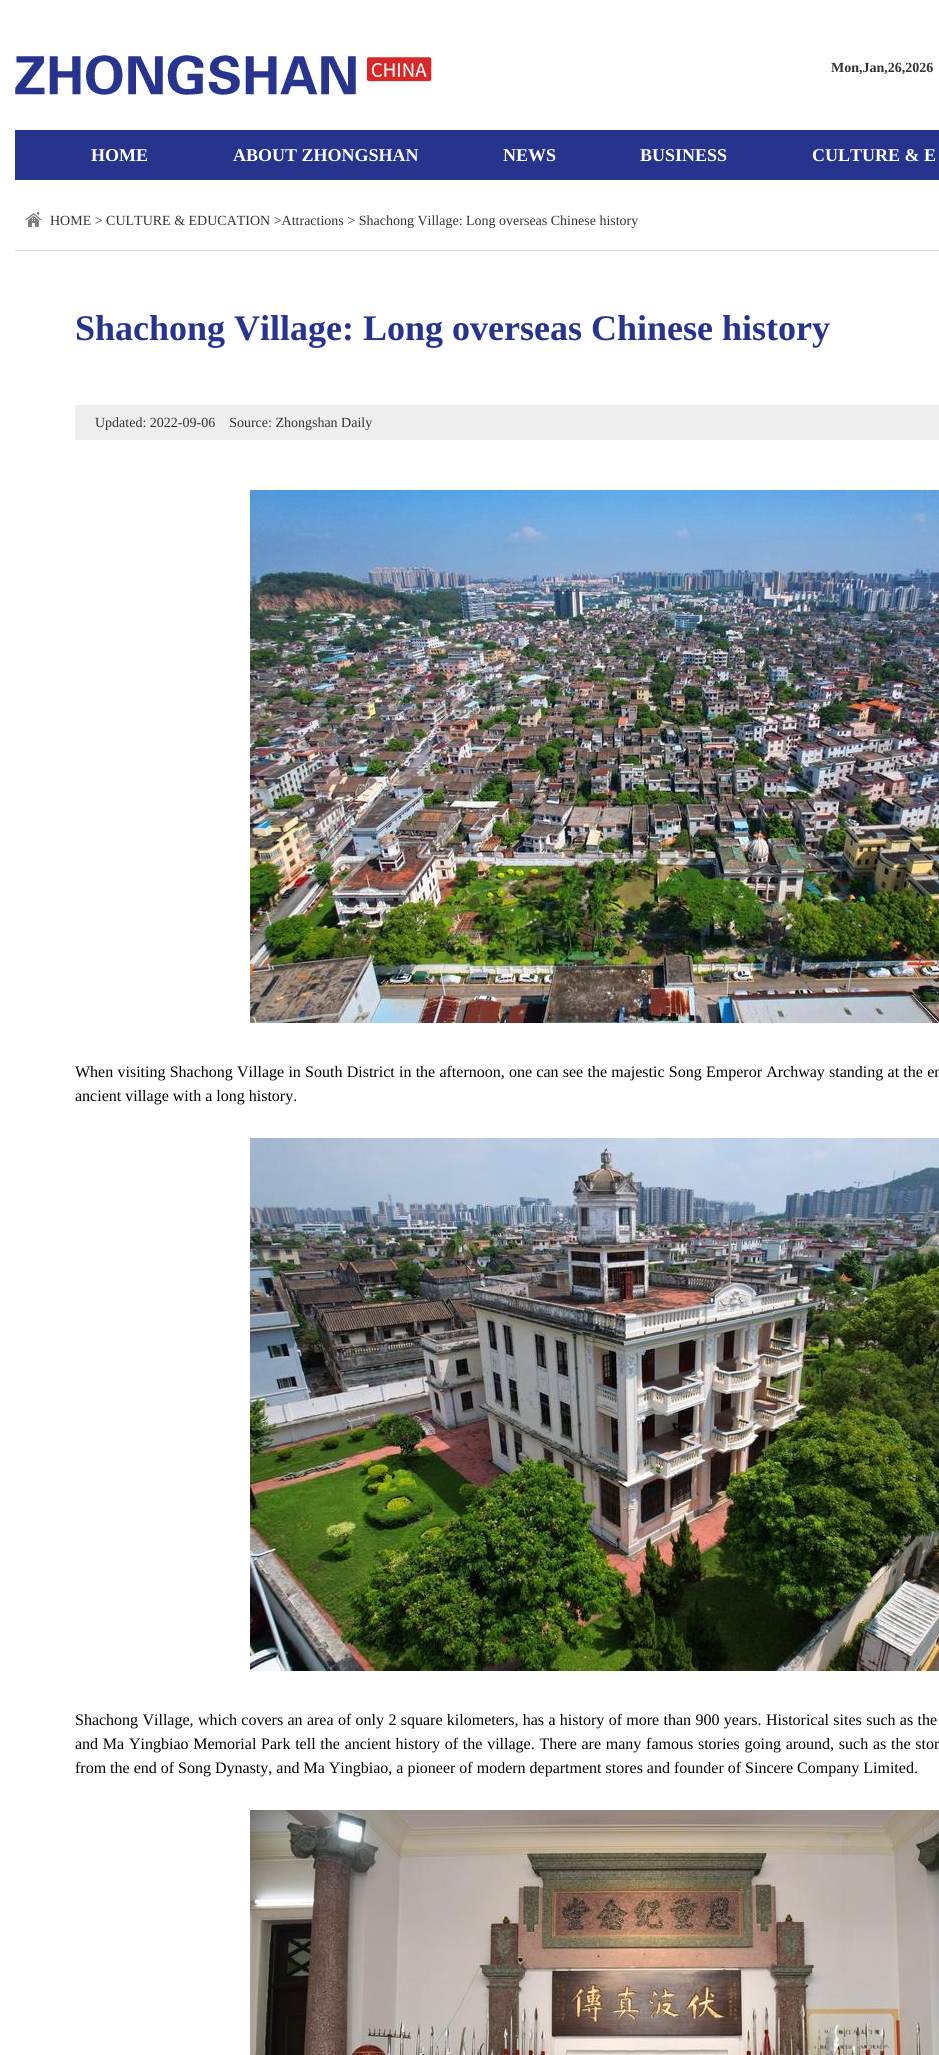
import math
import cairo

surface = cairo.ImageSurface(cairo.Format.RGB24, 939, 2055)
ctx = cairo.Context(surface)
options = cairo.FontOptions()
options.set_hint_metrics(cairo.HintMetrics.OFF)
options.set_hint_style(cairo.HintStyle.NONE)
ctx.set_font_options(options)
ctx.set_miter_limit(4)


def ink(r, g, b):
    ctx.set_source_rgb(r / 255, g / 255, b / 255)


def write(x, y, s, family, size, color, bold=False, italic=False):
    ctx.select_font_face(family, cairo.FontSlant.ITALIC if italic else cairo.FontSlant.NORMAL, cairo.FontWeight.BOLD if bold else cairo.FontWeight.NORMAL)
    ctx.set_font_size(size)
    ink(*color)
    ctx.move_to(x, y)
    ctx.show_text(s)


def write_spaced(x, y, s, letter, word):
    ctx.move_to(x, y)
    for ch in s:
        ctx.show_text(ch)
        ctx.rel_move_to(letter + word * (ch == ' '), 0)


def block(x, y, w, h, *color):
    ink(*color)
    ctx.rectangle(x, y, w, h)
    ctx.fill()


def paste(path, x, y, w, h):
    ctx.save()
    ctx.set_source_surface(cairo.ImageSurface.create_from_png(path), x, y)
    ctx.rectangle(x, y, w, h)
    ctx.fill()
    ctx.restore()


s1 = dict(family="Liberation Serif", size=14, color=(51, 51, 51), bold=True)
s2 = dict(family="Liberation Serif", size=18, color=(255, 255, 255), bold=True)
s3 = dict(family="Liberation Serif", size=14, color=(51, 51, 51))
s4 = dict(family="Liberation Serif", size=36, color=(39, 52, 142), bold=True)
s5 = dict(family="Liberation Serif", size=16, color=(0, 0, 0))

ink(255, 255, 255)
ctx.paint()
paste("pic1.png", 15, 55, 417, 40)
write(831, 72, "Mon,Jan,26,2026", **s1)
block(15, 130, 924, 50, 39, 52, 142)
write(91, 161, "HOME", **s2)
write(233, 161, "ABOUT ZHONGSHAN", **s2)
write(503, 161, "NEWS", **s2)
write(640, 161, "BUSINESS", **s2)
write(812, 161, "CULTURE & E", **s2)
paste("pic2.png", 25, 212, 17, 15)
block(15, 250, 924, 1, 218, 218, 218)
write(50, 225, "HOME > CULTURE & EDUCATION >Attractions > Shachong Village: Long overseas Chinese history", **s3)
write(75, 340, "Shachong Village: Long overseas Chinese history", **s4)
block(75, 405, 864, 35, 238, 238, 238)
write(95, 427, "Updated: 2022-09-06    Source: Zhongshan Daily", **s3)
paste("pic3.png", 250, 490, 689, 533)
ctx.set_font_size(16)
ink(0, 0, 0)
write_spaced(75, 1077, "When visiting Shachong Village in South District in the afternoon, one can see the majestic Song Emperor Archway standing at the en", 0, 0.25)
write(75, 1101, "ancient village with a long history.", **s5)
paste("pic4.png", 250, 1138, 689, 533)
write_spaced(75, 1725, "Shachong Village, which covers an area of only 2 square kilometers, has a history of more than 900 years. Historical sites such as the", 0, 0.35)
write_spaced(75, 1749, "and Ma Yingbiao Memorial Park tell the ancient history of the village. There are many famous stories going around, such as the stor", 0, 0.75)
write(75, 1773, "from the end of Song Dynasty, and Ma Yingbiao, a pioneer of modern department stores and founder of Sincere Company Limited.", **s5)
paste("pic5.png", 250, 1810, 689, 245)
surface.write_to_png("screenshot.png")
